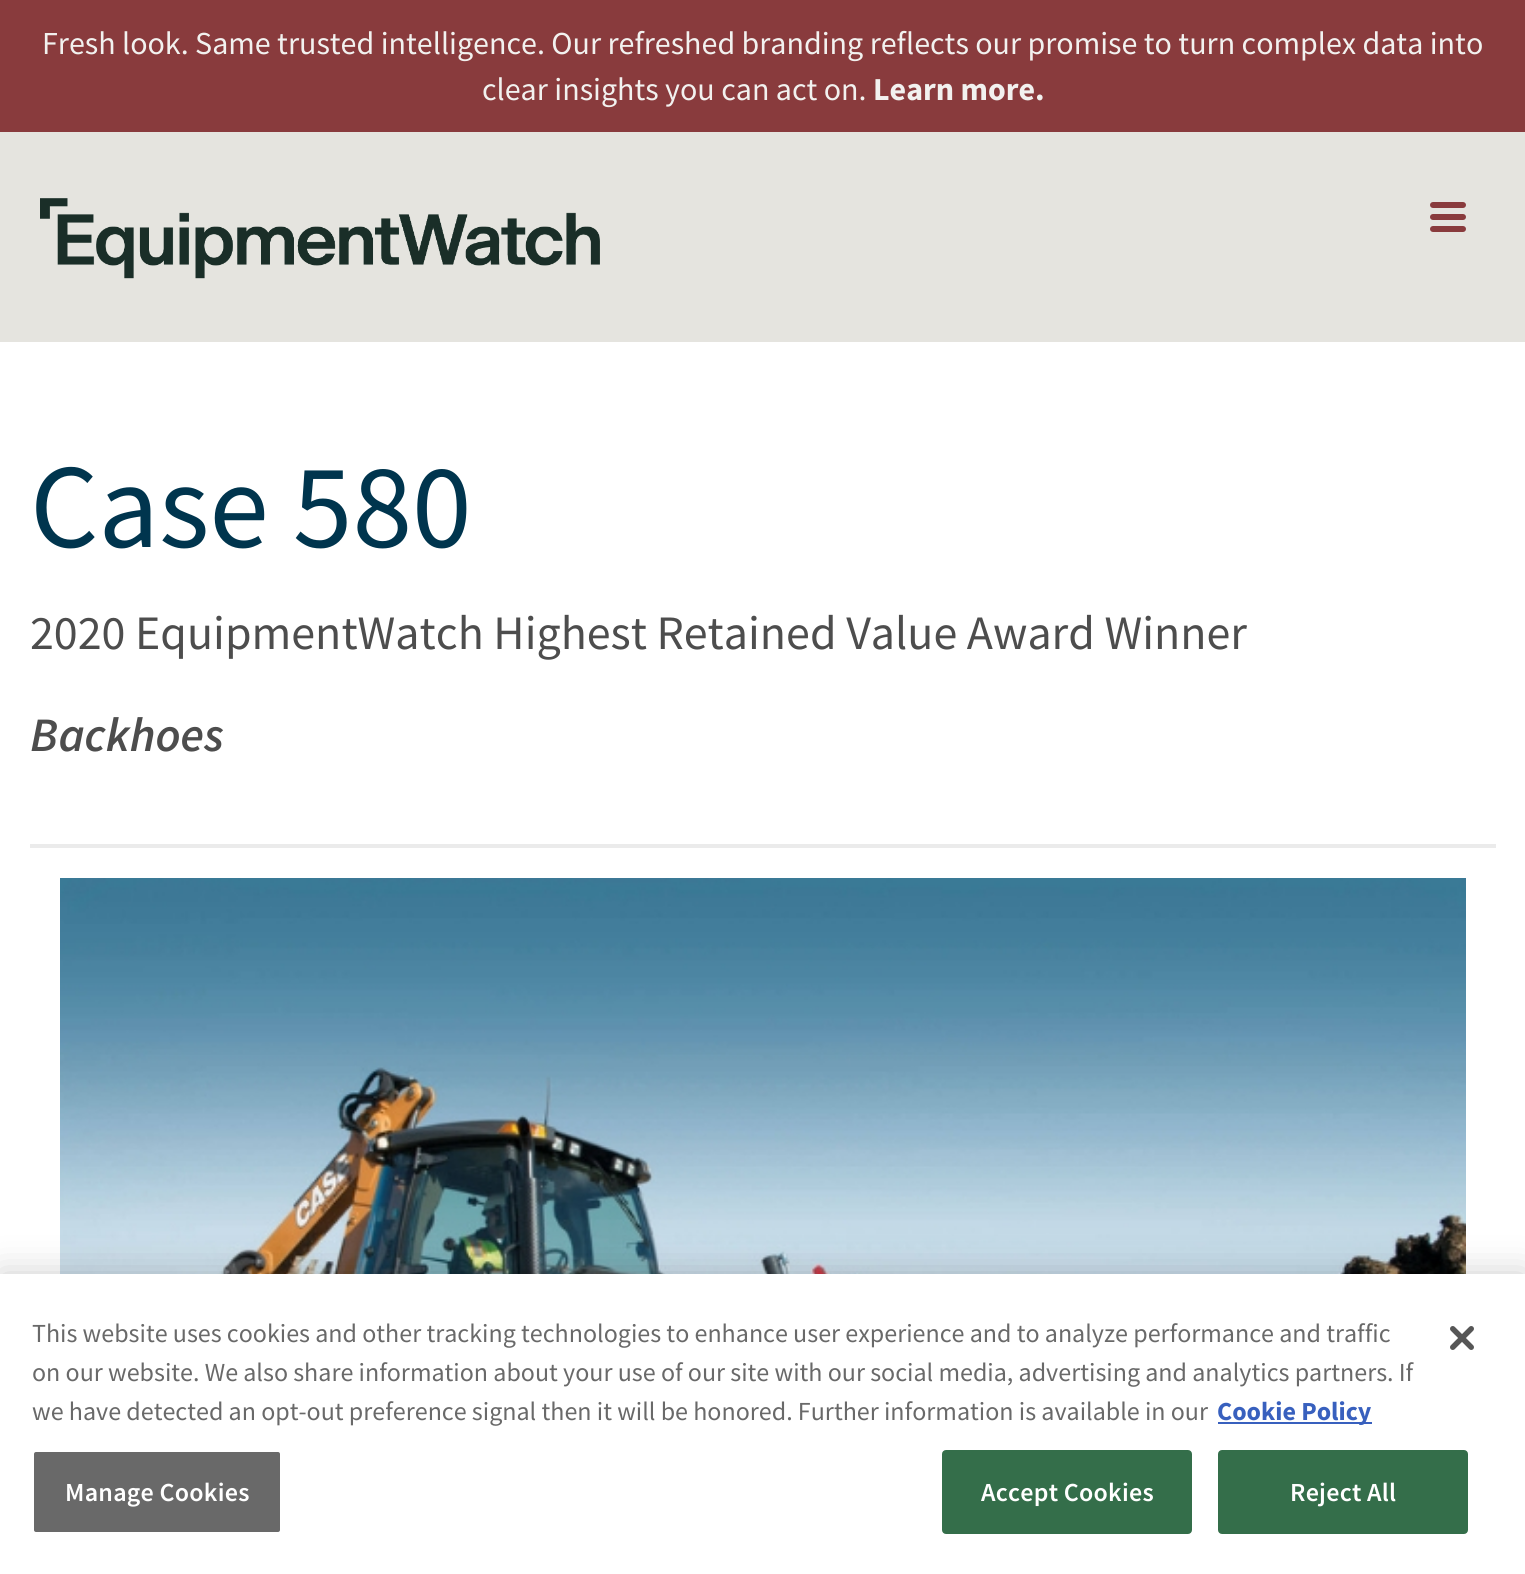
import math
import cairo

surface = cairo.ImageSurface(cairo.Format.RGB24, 1525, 1574)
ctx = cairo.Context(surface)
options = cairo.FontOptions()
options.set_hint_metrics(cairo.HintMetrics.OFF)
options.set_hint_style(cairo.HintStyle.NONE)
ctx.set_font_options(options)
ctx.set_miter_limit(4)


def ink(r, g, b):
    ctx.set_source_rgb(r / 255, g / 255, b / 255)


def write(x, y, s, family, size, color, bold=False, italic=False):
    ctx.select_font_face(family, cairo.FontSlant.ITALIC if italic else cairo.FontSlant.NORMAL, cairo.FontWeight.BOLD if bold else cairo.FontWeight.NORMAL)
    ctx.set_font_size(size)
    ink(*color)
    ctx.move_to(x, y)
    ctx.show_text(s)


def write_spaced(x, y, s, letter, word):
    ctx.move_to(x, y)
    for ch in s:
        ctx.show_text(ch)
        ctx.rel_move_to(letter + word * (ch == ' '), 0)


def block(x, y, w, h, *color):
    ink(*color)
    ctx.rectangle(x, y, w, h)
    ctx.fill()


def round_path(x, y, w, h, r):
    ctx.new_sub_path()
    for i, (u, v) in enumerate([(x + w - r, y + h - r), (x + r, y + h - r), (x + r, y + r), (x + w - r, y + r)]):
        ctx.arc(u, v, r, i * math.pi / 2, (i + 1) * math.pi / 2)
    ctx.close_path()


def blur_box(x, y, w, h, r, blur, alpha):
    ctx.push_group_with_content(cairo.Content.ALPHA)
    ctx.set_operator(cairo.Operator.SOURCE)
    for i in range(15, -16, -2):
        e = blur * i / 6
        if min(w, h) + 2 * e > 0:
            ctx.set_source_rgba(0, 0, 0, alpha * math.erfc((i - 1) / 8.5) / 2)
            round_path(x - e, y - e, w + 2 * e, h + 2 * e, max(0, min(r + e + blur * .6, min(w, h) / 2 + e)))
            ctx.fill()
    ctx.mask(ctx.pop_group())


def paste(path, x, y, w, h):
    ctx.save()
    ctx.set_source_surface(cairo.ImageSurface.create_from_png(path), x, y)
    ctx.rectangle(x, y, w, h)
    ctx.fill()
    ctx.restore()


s1 = dict(family="Source Sans Pro", size=32, color=(242, 241, 239))
s2 = dict(family="Source Sans Pro", size=32, color=(242, 241, 239), bold=True)
s3 = dict(family="Source Sans Pro", size=120, color=(0, 53, 78))
s4 = dict(family="Source Sans Pro", size=48, color=(77, 77, 77))
s5 = dict(family="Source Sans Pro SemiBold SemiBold", size=48, color=(77, 77, 77), italic=True)
s6 = dict(family="Source Sans Pro", size=26.02, color=(105, 105, 105))
s7 = dict(family="Source Sans Pro", size=26.02, color=(56, 96, 190), bold=True)

ink(255, 255, 255)
ctx.paint()
block(0, 0, 1525, 132, 137, 59, 61)
write(42, 54, "Fresh look. Same trusted intelligence. Our refreshed branding reflects our promise to turn complex data into", **s1)
write(482, 100, "clear insights you can act on.", **s1)
write(873, 100, "Learn more.", **s2)
block(0, 132, 1525, 210, 229, 228, 223)
paste("pic1.png", 40, 198, 560, 81)
ink(137, 59, 61)
round_path(1430, 202, 36, 6, 3)
ctx.fill()
round_path(1430, 214, 36, 6, 3)
ctx.fill()
round_path(1430, 226, 36, 6, 3)
ctx.fill()
write(30, 547, "Case 580", **s3)
write(30, 649, "2020 EquipmentWatch Highest Retained Value Award Winner", **s4)
write(30, 751, "Backhoes", **s5)
block(30, 844, 1466, 4, 235, 235, 235)
paste("pic2.png", 60, 878, 1406, 396)
ink(0, 0, 0)
blur_box(0, 1274, 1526, 300, 0, 18, 0.2)
block(0, 1274, 1525, 300, 255, 255, 255)
write(32, 1342, "This website uses cookies and other tracking technologies to enhance user experience and to analyze performance and traffic", **s6)
write(32, 1381, "on our website. We also share information about your use of our site with our social media, advertising and analytics partners. If", **s6)
write(32, 1420, "we have detected an opt-out preference signal then it will be honored. Further information is available in our", **s6)
block(1218, 1422, 154, 2, 56, 96, 190)
write(1217, 1420, "Cookie Policy", **s7)
ink(105, 105, 105)
round_path(33, 1451, 248, 82, 3)
ctx.fill_preserve()
ink(255, 255, 255)
ctx.stroke()
ctx.select_font_face("Source Sans Pro SemiBold SemiBold")
write_spaced(65, 1501, "Manage Cookies", 0.25, 0)
ink(52, 110, 74)
round_path(943, 1451, 248, 82, 3)
ctx.fill_preserve()
ctx.stroke()
ink(255, 255, 255)
write_spaced(981, 1501, "Accept Cookies", 0.25, 0)
ink(52, 110, 74)
round_path(1219, 1451, 248, 82, 3)
ctx.fill_preserve()
ctx.stroke()
ink(255, 255, 255)
write_spaced(1290, 1501, "Reject All", 0.25, 0)
paste("pic3.png", 1450, 1326, 24, 24)
surface.write_to_png("screenshot.png")
